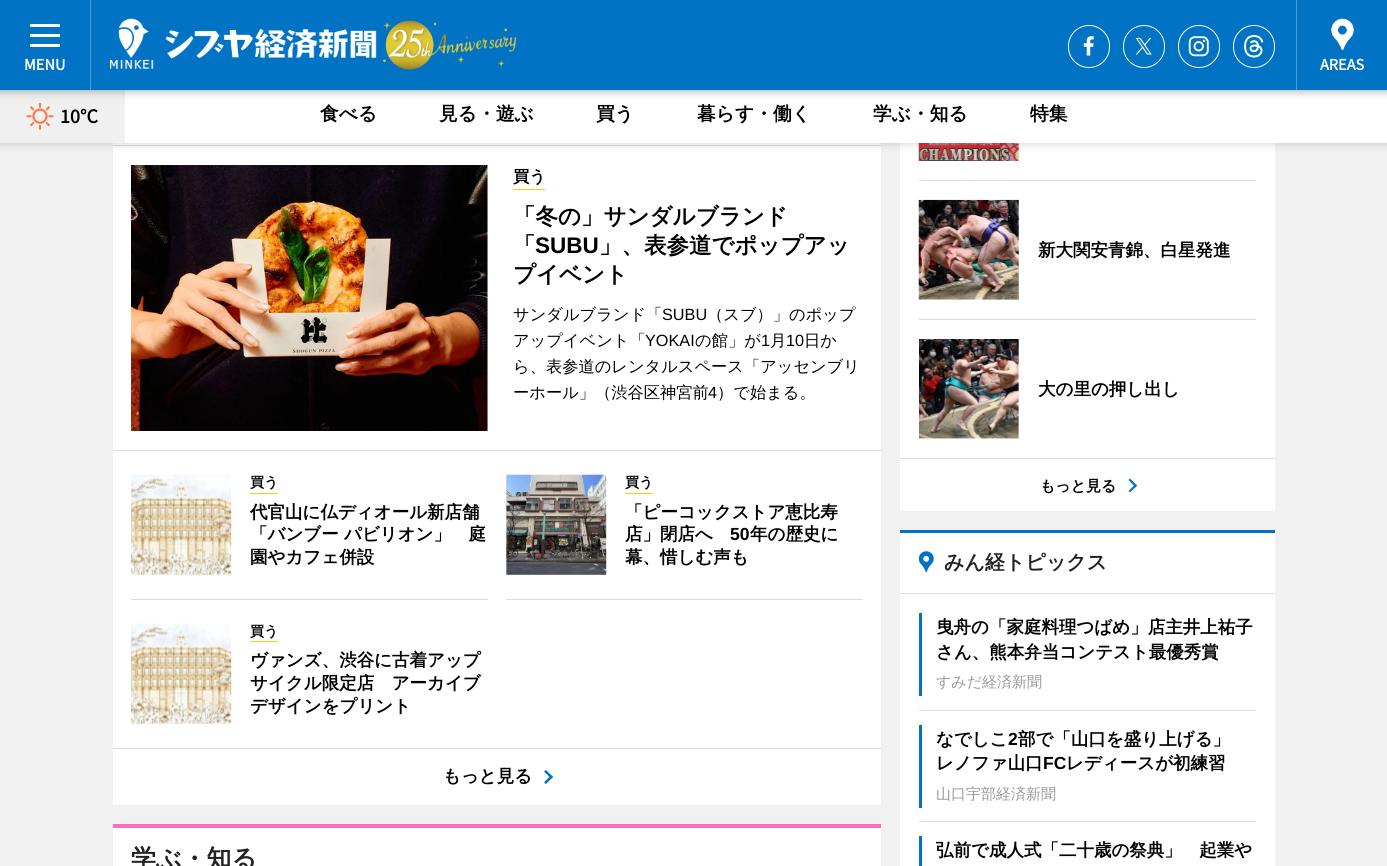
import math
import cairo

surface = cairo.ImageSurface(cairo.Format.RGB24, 1387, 866)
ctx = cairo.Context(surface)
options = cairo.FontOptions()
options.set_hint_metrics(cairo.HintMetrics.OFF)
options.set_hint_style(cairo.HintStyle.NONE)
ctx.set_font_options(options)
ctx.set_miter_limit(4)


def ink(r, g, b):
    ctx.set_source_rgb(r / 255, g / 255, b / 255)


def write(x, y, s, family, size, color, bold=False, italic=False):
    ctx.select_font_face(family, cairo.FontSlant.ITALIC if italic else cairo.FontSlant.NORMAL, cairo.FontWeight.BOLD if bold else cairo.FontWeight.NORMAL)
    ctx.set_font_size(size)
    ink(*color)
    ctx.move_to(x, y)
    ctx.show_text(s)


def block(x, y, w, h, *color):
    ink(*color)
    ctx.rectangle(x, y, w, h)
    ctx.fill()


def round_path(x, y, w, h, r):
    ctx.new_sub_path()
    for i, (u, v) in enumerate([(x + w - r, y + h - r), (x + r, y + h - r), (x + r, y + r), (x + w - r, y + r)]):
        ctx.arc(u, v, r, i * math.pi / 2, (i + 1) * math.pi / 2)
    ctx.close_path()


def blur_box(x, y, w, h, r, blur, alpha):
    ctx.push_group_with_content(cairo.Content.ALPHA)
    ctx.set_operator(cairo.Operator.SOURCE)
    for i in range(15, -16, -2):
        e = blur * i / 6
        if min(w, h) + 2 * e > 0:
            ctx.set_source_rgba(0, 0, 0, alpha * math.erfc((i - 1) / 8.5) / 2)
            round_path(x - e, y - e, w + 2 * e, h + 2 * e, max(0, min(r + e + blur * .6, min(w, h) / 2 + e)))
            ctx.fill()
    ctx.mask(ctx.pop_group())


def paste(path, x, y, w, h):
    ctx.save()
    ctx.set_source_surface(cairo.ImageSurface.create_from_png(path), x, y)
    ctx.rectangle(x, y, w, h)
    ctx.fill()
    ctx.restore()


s1 = dict(family="Source Sans Pro", size=16.25, color=(255, 255, 255), bold=True)
s2 = dict(family="Source Sans Pro", size=20, color=(0, 0, 0), bold=True)
s3 = dict(family="WenQuanYi Zen Hei", size=18.75, color=(0, 0, 0), bold=True)
s4 = dict(family="WenQuanYi Zen Hei", size=16.25, color=(0, 0, 0), bold=True)
s5 = dict(family="WenQuanYi Zen Hei", size=22.5, color=(0, 0, 0), bold=True)
s6 = dict(family="Liberation Sans", size=22.5, color=(0, 0, 0), bold=True)
s7 = dict(family="WenQuanYi Zen Hei Medium", size=16.25, color=(0, 0, 0))
s8 = dict(family="Liberation Sans", size=16.25, color=(0, 0, 0))
s9 = dict(family="WenQuanYi Zen Hei", size=14, color=(0, 0, 0), bold=True)
s10 = dict(family="WenQuanYi Zen Hei", size=17.5, color=(0, 0, 0), bold=True)
s11 = dict(family="Liberation Sans", size=17.5, color=(0, 0, 0), bold=True)
s12 = dict(family="WenQuanYi Zen Hei", size=25, color=(34, 34, 34), bold=True)
s13 = dict(family="WenQuanYi Zen Hei", size=15, color=(0, 0, 0), bold=True)
s14 = dict(family="WenQuanYi Zen Hei", size=20, color=(34, 34, 34), bold=True)
s15 = dict(family="WenQuanYi Zen Hei Medium", size=15, color=(153, 153, 153))

ink(241, 241, 241)
ctx.paint()
block(113, 143, 768, 662, 255, 255, 255)
block(113, 145, 768, 1, 221, 221, 221)
block(900, 143, 375, 368, 255, 255, 255)
paste("pic13.png", 918, 143, 101, 18)
ink(0, 0, 0)
blur_box(-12, 65, 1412, 78, 0, 5, 0.2)
block(125, 90, 1262, 53, 255, 255, 255)
block(0, 90, 125, 53, 240, 240, 240)
paste("pic8.png", 26, 103, 28, 27)
ink(0, 0, 0)
blur_box(-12, -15, 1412, 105, 0, 5, 0.4)
block(0, 0, 1387, 90, 0, 115, 196)
block(90, 0, 1, 90, 77, 157, 213)
block(30, 24, 30, 3, 255, 255, 255)
block(30, 44, 30, 3, 255, 255, 255)
block(30, 34, 30, 3, 255, 255, 255)
write(24, 70, "MENU", **s1)
paste("pic1.png", 110, 18, 267, 51)
paste("pic2.png", 383, 20, 134, 50)
paste("pic3.png", 1083, 36, 11, 20)
round_path(1068.5, 25.5, 41, 42, 20.5)
ctx.set_line_width(1)
ctx.stroke()
paste("pic4.png", 1135, 37, 17, 18)
round_path(1123.5, 25.5, 41, 42, 20.5)
ctx.stroke()
paste("pic5.png", 1188, 36, 21, 21)
round_path(1178.5, 25.5, 41, 42, 20.5)
ctx.stroke()
paste("pic6.png", 1244, 35, 20, 23)
round_path(1233.5, 25.5, 41, 42, 20.5)
ctx.stroke()
block(1296, 0, 1, 90, 77, 157, 213)
paste("pic7.png", 1331, 18, 23, 33)
write(1320, 70, "AREAS", **s1)
write(60, 123, "10°C", **s2)
write(320, 120, "食べる", **s3)
write(439, 120, "見る・遊ぶ", **s3)
write(596, 120, "買う", **s3)
write(697, 120, "暮らす・働く", **s3)
write(873, 120, "学ぶ・知る", **s3)
write(1030, 120, "特集", **s3)
block(131, 165, 357, 266, 239, 239, 239)
paste("pic9.png", 131, 165, 357, 266)
block(513, 189, 32, 1, 255, 202, 0)
write(513, 182, "買う", **s4)
write(513, 224, "「冬の」サンダルブランド", **s5)
write(513, 253, "「", **s5)
write(535, 253, "SUBU", **s6)
write(599, 253, "」、表参道でポップアッ", **s5)
write(513, 282, "プイベント", **s5)
write(513, 320, "サンダルブランド「", **s7)
write(662, 320, "SUBU", **s8)
write(707, 320, "（スブ）」のポップ", **s7)
write(513, 346, "アップイベント「", **s7)
write(645, 346, "YOKAI", **s8)
write(695, 346, "の館」が", **s7)
write(761, 346, "1", **s8)
write(770, 346, "月", **s7)
write(786, 346, "10", **s8)
write(804, 346, "日か", **s7)
write(513, 372, "ら、表参道のレンタルスペース「アッセンブリ", **s7)
write(513, 398, "ーホール」（渋谷区神宮前", **s7)
write(708, 398, "4", **s8)
write(717, 398, "）で始まる。", **s7)
block(113, 450, 768, 1, 221, 221, 221)
block(131, 475, 100, 100, 239, 239, 239)
paste("pic10.png", 131, 474, 101, 102)
block(250, 493, 28, 1, 255, 202, 0)
write(250, 487, "買う", **s9)
write(250, 518, "代官山に仏ディオール新店舗", **s10)
write(250, 540, "「バンブー パビリオン」　庭", **s10)
write(250, 563, "園やカフェ併設", **s10)
block(506, 475, 100, 100, 239, 239, 239)
paste("pic11.png", 506, 474, 101, 101)
block(625, 493, 28, 1, 255, 202, 0)
write(625, 487, "買う", **s9)
write(625, 518, "「ピーコックストア恵比寿", **s10)
write(625, 540, "店」閉店へ", **s10)
write(730, 540, "50", **s11)
write(750, 540, "年の歴史に", **s10)
write(625, 563, "幕、惜しむ声も", **s10)
block(506, 599, 357, 1, 221, 221, 221)
block(131, 599, 357, 1, 221, 221, 221)
block(131, 624, 100, 100, 239, 239, 239)
paste("pic12.png", 131, 623, 101, 101)
block(250, 641, 28, 1, 255, 202, 0)
write(250, 636, "買う", **s9)
write(250, 666, "ヴァンズ、渋谷に古着アップ", **s10)
write(250, 689, "サイクル限定店　アーカイブ", **s10)
write(250, 712, "デザインをプリント", **s10)
block(113, 748, 768, 1, 221, 221, 221)
write(443, 782, "もっと見る", **s10)
ink(0, 115, 196)
ctx.new_path()
ctx.move_to(546, 770)
ctx.line_to(553, 777)
ctx.line_to(551, 778.5)
ctx.line_to(544, 771.5)
ctx.close_path()
ctx.fill()
ctx.new_path()
ctx.move_to(551, 775)
ctx.line_to(553, 777)
ctx.line_to(546, 784)
ctx.line_to(544, 782.5)
ctx.close_path()
ctx.fill()
block(113, 828, 768, 38, 255, 255, 255)
block(113, 824, 768, 4, 255, 106, 185)
write(131, 867, "学ぶ・知る", **s12)
block(919, 180, 337, 1, 221, 221, 221)
paste("pic14.png", 918, 199, 101, 101)
write(1038, 256, "新大関安青錦、白星発進", **s10)
block(919, 319, 337, 1, 221, 221, 221)
paste("pic15.png", 919, 339, 100, 100)
write(1038, 395, "大の里の押し出し", **s10)
block(900, 458, 375, 1, 221, 221, 221)
write(1040, 491, "もっと見る", **s13)
ink(0, 115, 196)
ctx.new_path()
ctx.move_to(1130, 478.5)
ctx.line_to(1137, 485.5)
ctx.line_to(1135.5, 487.5)
ctx.line_to(1128.5, 480)
ctx.close_path()
ctx.fill()
ctx.new_path()
ctx.move_to(1135.5, 484)
ctx.line_to(1137, 485.5)
ctx.line_to(1130, 492.5)
ctx.line_to(1128.5, 491)
ctx.close_path()
ctx.fill()
block(900, 533, 375, 333, 255, 255, 255)
block(900, 530, 375, 3, 0, 115, 196)
block(900, 593, 375, 1, 221, 221, 221)
paste("pic16.png", 919, 551, 15, 22)
write(944, 569, "みん経トピックス", **s14)
block(919, 613, 3, 83, 0, 115, 196)
write(936, 633, "曳舟の「家庭料理つばめ」店主井上祐子", **s10)
write(936, 658, "さん、熊本弁当コンテスト最優秀賞", **s10)
write(936, 687, "すみだ経済新聞", **s15)
block(919, 710, 337, 1, 221, 221, 221)
block(919, 725, 3, 83, 0, 115, 196)
write(936, 745, "なでしこ", **s10)
write(1008, 745, "2", **s11)
write(1018, 745, "部で「山口を盛り上げる」", **s10)
write(936, 769, "レノファ山口", **s10)
write(1043, 769, "FC", **s11)
write(1066, 769, "レディースが初練習", **s10)
write(936, 799, "山口宇部経済新聞", **s15)
block(919, 821, 337, 1, 221, 221, 221)
block(919, 836, 3, 30, 0, 115, 196)
write(936, 856, "弘前で成人式「二十歳の祭典」　起業や", **s10)
surface.write_to_png("screenshot.png")
